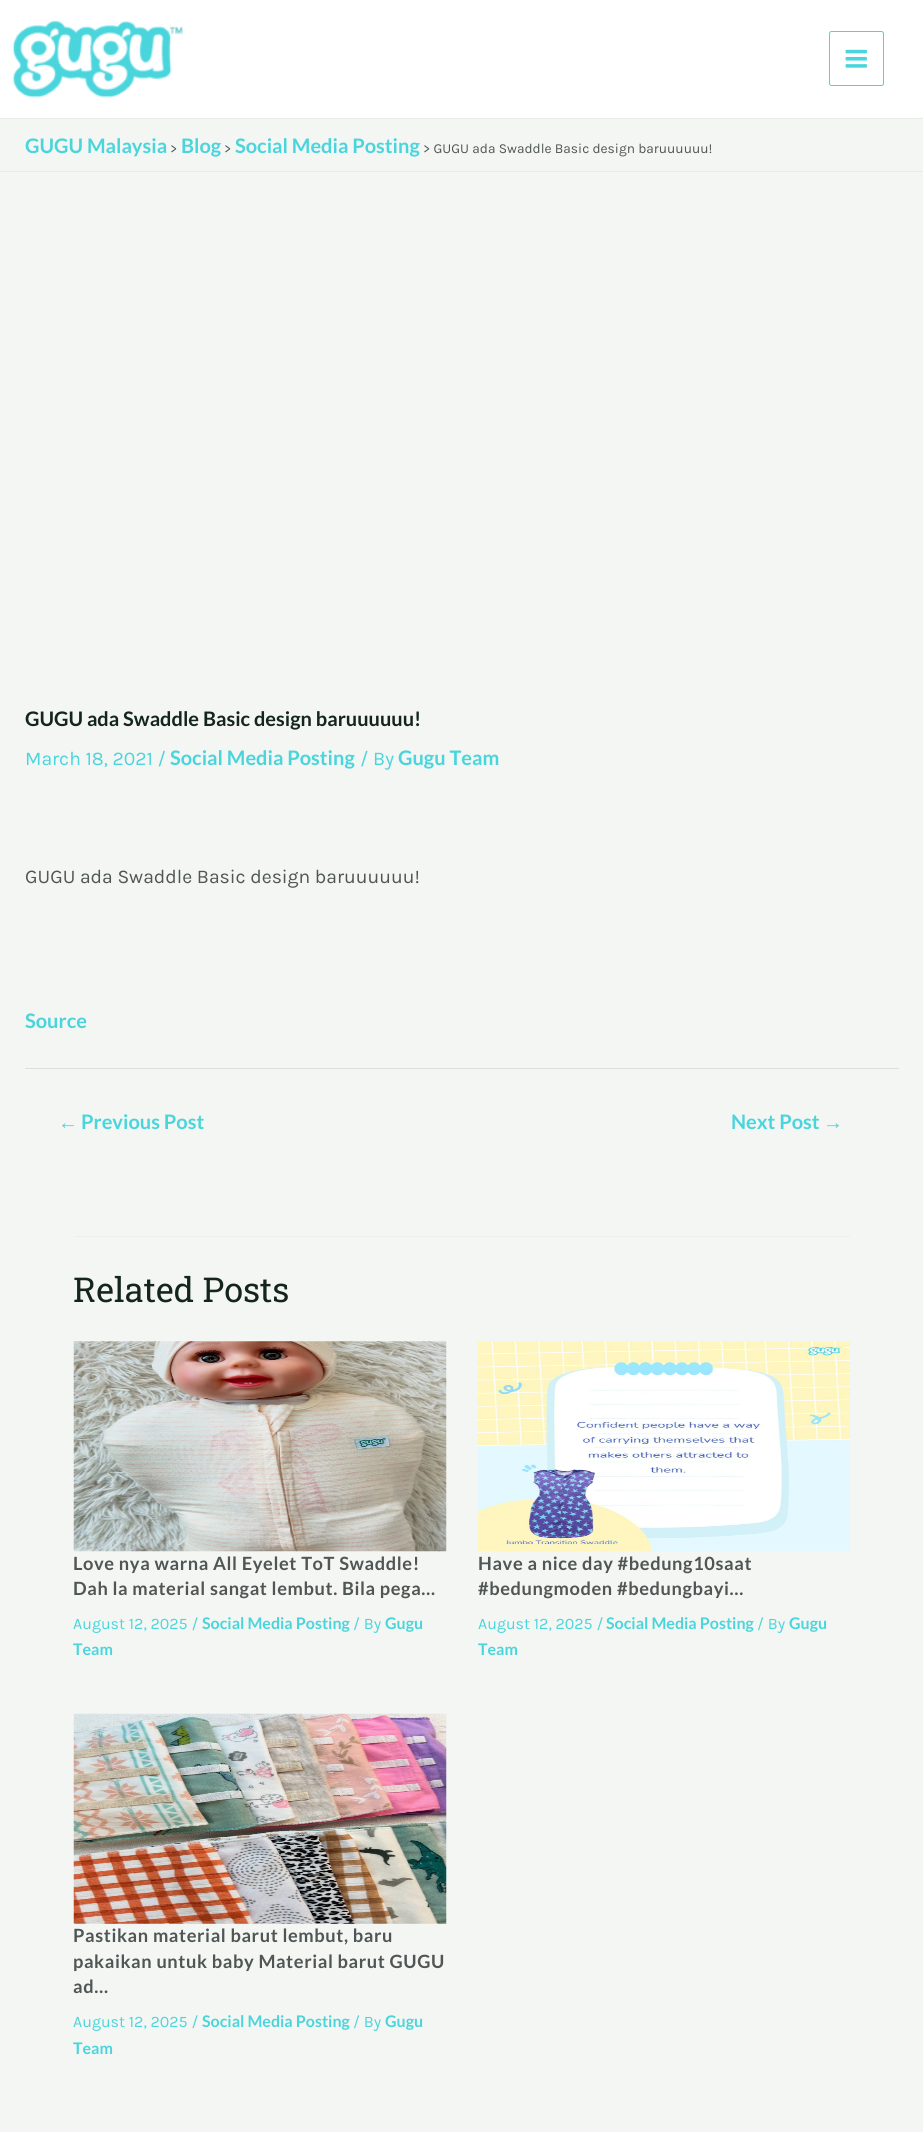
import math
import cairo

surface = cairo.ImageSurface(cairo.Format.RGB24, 923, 2132)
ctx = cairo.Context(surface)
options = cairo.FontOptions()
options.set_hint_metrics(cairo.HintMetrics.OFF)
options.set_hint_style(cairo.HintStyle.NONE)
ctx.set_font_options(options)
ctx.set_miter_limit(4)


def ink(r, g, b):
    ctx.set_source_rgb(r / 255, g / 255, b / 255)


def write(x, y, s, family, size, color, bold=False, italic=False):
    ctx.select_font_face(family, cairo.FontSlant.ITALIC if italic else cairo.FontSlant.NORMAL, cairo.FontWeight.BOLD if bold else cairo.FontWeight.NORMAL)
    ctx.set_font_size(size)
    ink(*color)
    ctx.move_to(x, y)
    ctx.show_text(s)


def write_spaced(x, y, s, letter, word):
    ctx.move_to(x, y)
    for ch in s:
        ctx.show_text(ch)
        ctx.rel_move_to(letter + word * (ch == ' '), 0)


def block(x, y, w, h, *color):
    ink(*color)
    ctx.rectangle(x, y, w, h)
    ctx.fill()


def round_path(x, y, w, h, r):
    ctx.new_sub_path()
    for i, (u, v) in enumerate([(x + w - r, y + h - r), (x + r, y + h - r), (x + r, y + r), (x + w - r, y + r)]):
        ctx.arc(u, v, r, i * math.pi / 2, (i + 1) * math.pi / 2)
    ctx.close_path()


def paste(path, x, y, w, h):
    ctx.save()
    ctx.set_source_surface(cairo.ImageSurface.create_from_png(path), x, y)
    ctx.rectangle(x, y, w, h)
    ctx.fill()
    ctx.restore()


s1 = dict(family="Lato", size=20, color=(74, 213, 220), bold=True)
s2 = dict(family="Karla", size=13.7, color=(79, 86, 85))
s3 = dict(family="Lato", size=20, color=(20, 38, 28), bold=True)
s4 = dict(family="Karla", size=19.4, color=(74, 213, 220))
s5 = dict(family="Karla", size=19.4, color=(79, 86, 85))
s6 = dict(family="Liberation Sans", size=20, color=(74, 213, 220), bold=True)
s7 = dict(family="Roboto Slab", size=34.25, color=(20, 38, 28))
s8 = dict(family="Karla", size=16, color=(74, 213, 220))
s9 = dict(family="Lato", size=16, color=(74, 213, 220), bold=True)

ink(243, 246, 243)
ctx.paint()
block(0, 0, 923, 118, 255, 255, 255)
block(0, 118, 923, 1, 234, 234, 234)
paste("pic1.png", 12, 20, 171, 78)
round_path(829.5, 31.5, 54, 54, 2)
ink(74, 213, 220)
ctx.set_line_width(1)
ctx.stroke()
paste("pic2.png", 845, 49, 22, 19)
block(0, 171, 923, 1, 234, 234, 234)
write(25, 153, "GUGU Malaysia", **s1)
write(170, 153, ">", **s2)
write(181, 153, "Blog", **s1)
write(224, 153, ">", **s2)
write(235, 153, "Social Media Posting", **s1)
write(423, 153, "> GUGU ada Swaddle Basic design baruuuuuu!", **s2)
write(25, 726, "GUGU ada Swaddle Basic design baruuuuuu!", **s3)
write(25, 765, "March 18, 2021 /", **s4)
write(170, 765, "Social Media Posting", **s1)
write(360, 765, "/ By", **s4)
write(398, 765, "Gugu Team", **s1)
write(25, 883, "GUGU ada Swaddle Basic design baruuuuuu!", **s5)
write(25, 1028, "Source", **s1)
block(25, 1068, 874, 1, 221, 221, 221)
write(58, 1129, "←", **s6)
write(81, 1129, "Previous Post", **s1)
write(731, 1129, "Next Post", **s1)
write(823, 1129, "→", **s6)
block(74, 1236, 776, 1, 238, 238, 238)
write(73, 1302, "Related Posts", **s7)
paste("pic3.png", 73, 1341, 374, 211)
ctx.select_font_face("Lato", cairo.FontSlant.NORMAL, cairo.FontWeight.BOLD)
ctx.set_font_size(18.25)
ink(79, 86, 85)
write_spaced(73, 1570, "Love nya warna All Eyelet ToT Swaddle!", 0.6, 0)
write_spaced(73, 1595, "Dah la material sangat lembut. Bila pega…", 0.6, 0)
write(73, 1629, "August 12, 2025 /", **s8)
write(202, 1629, "Social Media Posting", **s9)
write(353, 1629, "/ By", **s8)
write(385, 1629, "Gugu", **s9)
write(73, 1655, "Team", **s9)
paste("pic4.png", 477, 1341, 373, 211)
ctx.set_font_size(18.25)
ink(79, 86, 85)
write_spaced(478, 1570, "Have a nice day #bedung10saat", 0.6, 0)
write_spaced(478, 1595, "#bedungmoden #bedungbayi…", 0.6, 0)
write(478, 1629, "August 12, 2025 /", **s8)
write(606, 1629, "Social Media Posting", **s9)
write(757, 1629, "/ By", **s8)
write(789, 1629, "Gugu", **s9)
write(478, 1655, "Team", **s9)
paste("pic5.png", 73, 1713, 374, 211)
ctx.set_font_size(18.25)
ink(79, 86, 85)
write_spaced(73, 1942, "Pastikan material barut lembut, baru", 0.6, 0)
write_spaced(73, 1968, "pakaikan untuk baby Material barut GUGU", 0.6, 0)
write_spaced(73, 1993, "ad…", 0.6, 0)
write(73, 2027, "August 12, 2025 /", **s8)
write(202, 2027, "Social Media Posting", **s9)
write(353, 2027, "/ By", **s8)
write(385, 2027, "Gugu", **s9)
write(73, 2054, "Team", **s9)
surface.write_to_png("screenshot.png")
